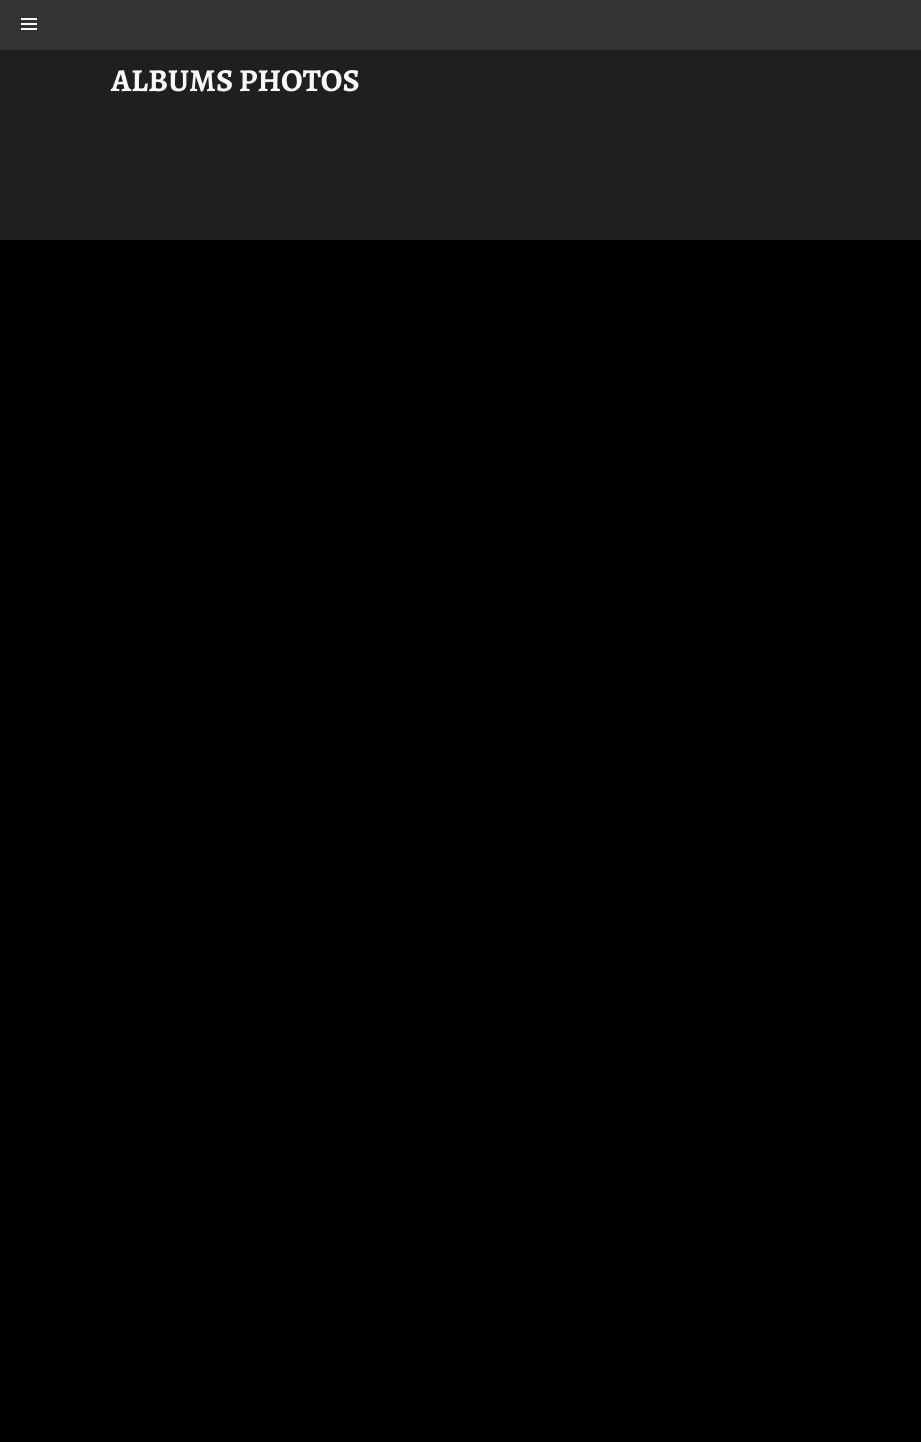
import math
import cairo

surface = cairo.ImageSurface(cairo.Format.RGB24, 921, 1442)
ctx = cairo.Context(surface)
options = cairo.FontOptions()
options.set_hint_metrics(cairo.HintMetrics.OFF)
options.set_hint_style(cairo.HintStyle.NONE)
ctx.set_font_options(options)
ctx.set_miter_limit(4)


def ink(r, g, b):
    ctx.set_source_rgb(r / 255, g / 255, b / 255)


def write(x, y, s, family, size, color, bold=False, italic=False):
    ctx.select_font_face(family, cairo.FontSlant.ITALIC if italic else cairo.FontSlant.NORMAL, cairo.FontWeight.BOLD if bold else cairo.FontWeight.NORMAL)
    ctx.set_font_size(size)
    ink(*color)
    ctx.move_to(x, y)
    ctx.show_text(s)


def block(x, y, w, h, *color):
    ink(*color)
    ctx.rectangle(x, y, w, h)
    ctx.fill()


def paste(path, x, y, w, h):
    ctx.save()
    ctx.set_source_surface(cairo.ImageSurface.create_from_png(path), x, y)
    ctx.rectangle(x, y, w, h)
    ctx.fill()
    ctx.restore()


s1 = dict(family="Alegreya", size=32, color=(249, 249, 249), bold=True)

ink(0, 0, 0)
ctx.paint()
block(0, 0, 921, 50, 51, 51, 51)
paste("pic1.png", 21, 18, 16, 12)
block(0, 50, 921, 190, 31, 31, 31)
write(111, 91, "ALBUMS PHOTOS", **s1)
surface.write_to_png("screenshot.png")
